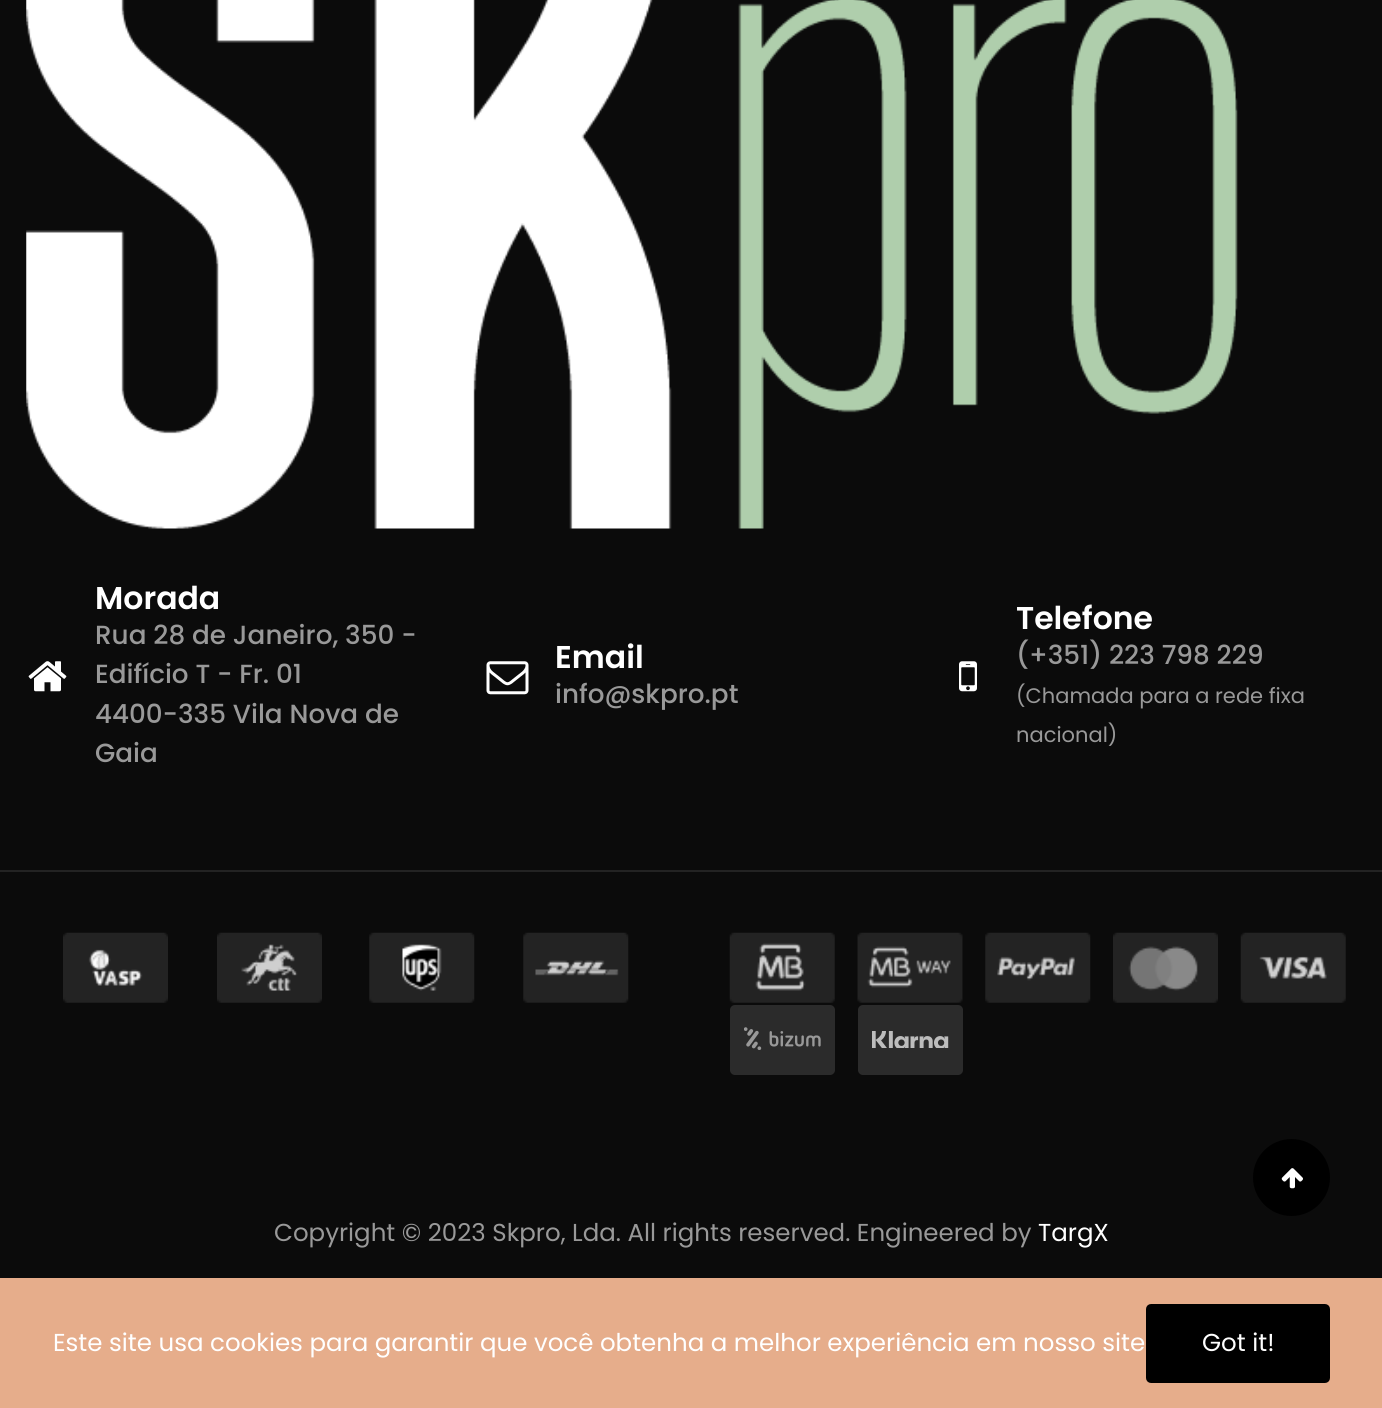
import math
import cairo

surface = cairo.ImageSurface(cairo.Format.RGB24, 1382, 1408)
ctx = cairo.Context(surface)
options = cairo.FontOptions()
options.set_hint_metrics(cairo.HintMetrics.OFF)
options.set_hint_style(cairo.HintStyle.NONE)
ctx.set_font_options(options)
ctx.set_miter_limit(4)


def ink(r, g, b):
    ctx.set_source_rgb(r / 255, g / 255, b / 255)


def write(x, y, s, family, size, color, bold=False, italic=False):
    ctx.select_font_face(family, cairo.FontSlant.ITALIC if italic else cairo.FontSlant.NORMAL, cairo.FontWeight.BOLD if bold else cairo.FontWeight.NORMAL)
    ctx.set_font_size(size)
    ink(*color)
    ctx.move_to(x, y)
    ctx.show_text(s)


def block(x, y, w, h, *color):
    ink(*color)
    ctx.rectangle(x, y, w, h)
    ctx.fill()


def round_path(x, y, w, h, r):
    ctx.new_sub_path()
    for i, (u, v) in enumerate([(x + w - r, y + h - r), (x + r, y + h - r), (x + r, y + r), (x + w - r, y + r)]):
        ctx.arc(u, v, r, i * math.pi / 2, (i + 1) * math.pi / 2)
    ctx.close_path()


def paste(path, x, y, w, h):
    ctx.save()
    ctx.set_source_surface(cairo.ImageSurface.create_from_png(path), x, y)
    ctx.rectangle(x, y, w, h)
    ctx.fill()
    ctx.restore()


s1 = dict(family="Poppins SemiBold", size=31.5, color=(255, 255, 255))
s2 = dict(family="Poppins Medium", size=26.25, color=(153, 153, 153))
s3 = dict(family="Poppins", size=21, color=(153, 153, 153))
s4 = dict(family="Poppins", size=24.5, color=(153, 153, 153))
s5 = dict(family="Poppins", size=24.5, color=(255, 255, 255))

ink(11, 11, 11)
ctx.paint()
block(0, 870, 1382, 2, 35, 35, 35)
paste("pic1.png", 26, 0, 1212, 529)
paste("pic2.png", 28, 661, 39, 31)
write(95, 609, "Morada", **s1)
write(95, 644, "Rua 28 de Janeiro, 350 -", **s2)
write(95, 683, "Edifício T - Fr. 01", **s2)
write(95, 723, "4400-335 Vila Nova de", **s2)
write(95, 762, "Gaia", **s2)
paste("pic3.png", 486, 661, 43, 34)
write(555, 668, "Email", **s1)
write(555, 703, "info@skpro.pt", **s2)
paste("pic4.png", 959, 661, 18, 31)
write(1016, 629, "Telefone", **s1)
write(1016, 664, "(+351) 223 798 229", **s2)
write(1016, 703, "(Chamada para a rede fixa", **s3)
write(1016, 742, "nacional)", **s3)
paste("pic5.png", 63, 932, 105, 71)
paste("pic6.png", 217, 932, 105, 71)
paste("pic7.png", 369, 932, 106, 71)
paste("pic8.png", 523, 932, 106, 71)
paste("pic9.png", 729, 932, 106, 71)
paste("pic10.png", 857, 932, 106, 71)
paste("pic11.png", 985, 932, 106, 71)
paste("pic12.png", 1113, 932, 105, 71)
paste("pic13.png", 1240, 932, 106, 71)
ink(43, 43, 43)
round_path(730, 1005, 105, 70, 5)
ctx.fill()
paste("pic14.png", 744, 1027, 77, 23)
round_path(858, 1005, 105, 70, 5)
ctx.fill()
paste("pic15.png", 872, 1031, 77, 17)
write(274, 1241, "Copyright © 2023 Skpro, Lda. All rights reserved. Engineered by", **s4)
write(1038, 1241, "TargX", **s5)
ink(0, 0, 0)
ctx.new_path()
ctx.arc(1291.5, 1177.5, 38.5, 0, 2 * math.pi)
ctx.fill()
paste("pic16.png", 1281, 1168, 22, 21)
block(0, 1278, 1382, 130, 230, 173, 139)
write(53, 1351, "Este site usa cookies para garantir que você obtenha a melhor experiência em nosso site", **s5)
ink(0, 0, 0)
round_path(1148, 1306, 180, 75, 3)
ctx.fill_preserve()
ctx.set_line_width(4)
ctx.stroke()
write(1202, 1351, "Got it!", **s5)
surface.write_to_png("screenshot.png")
